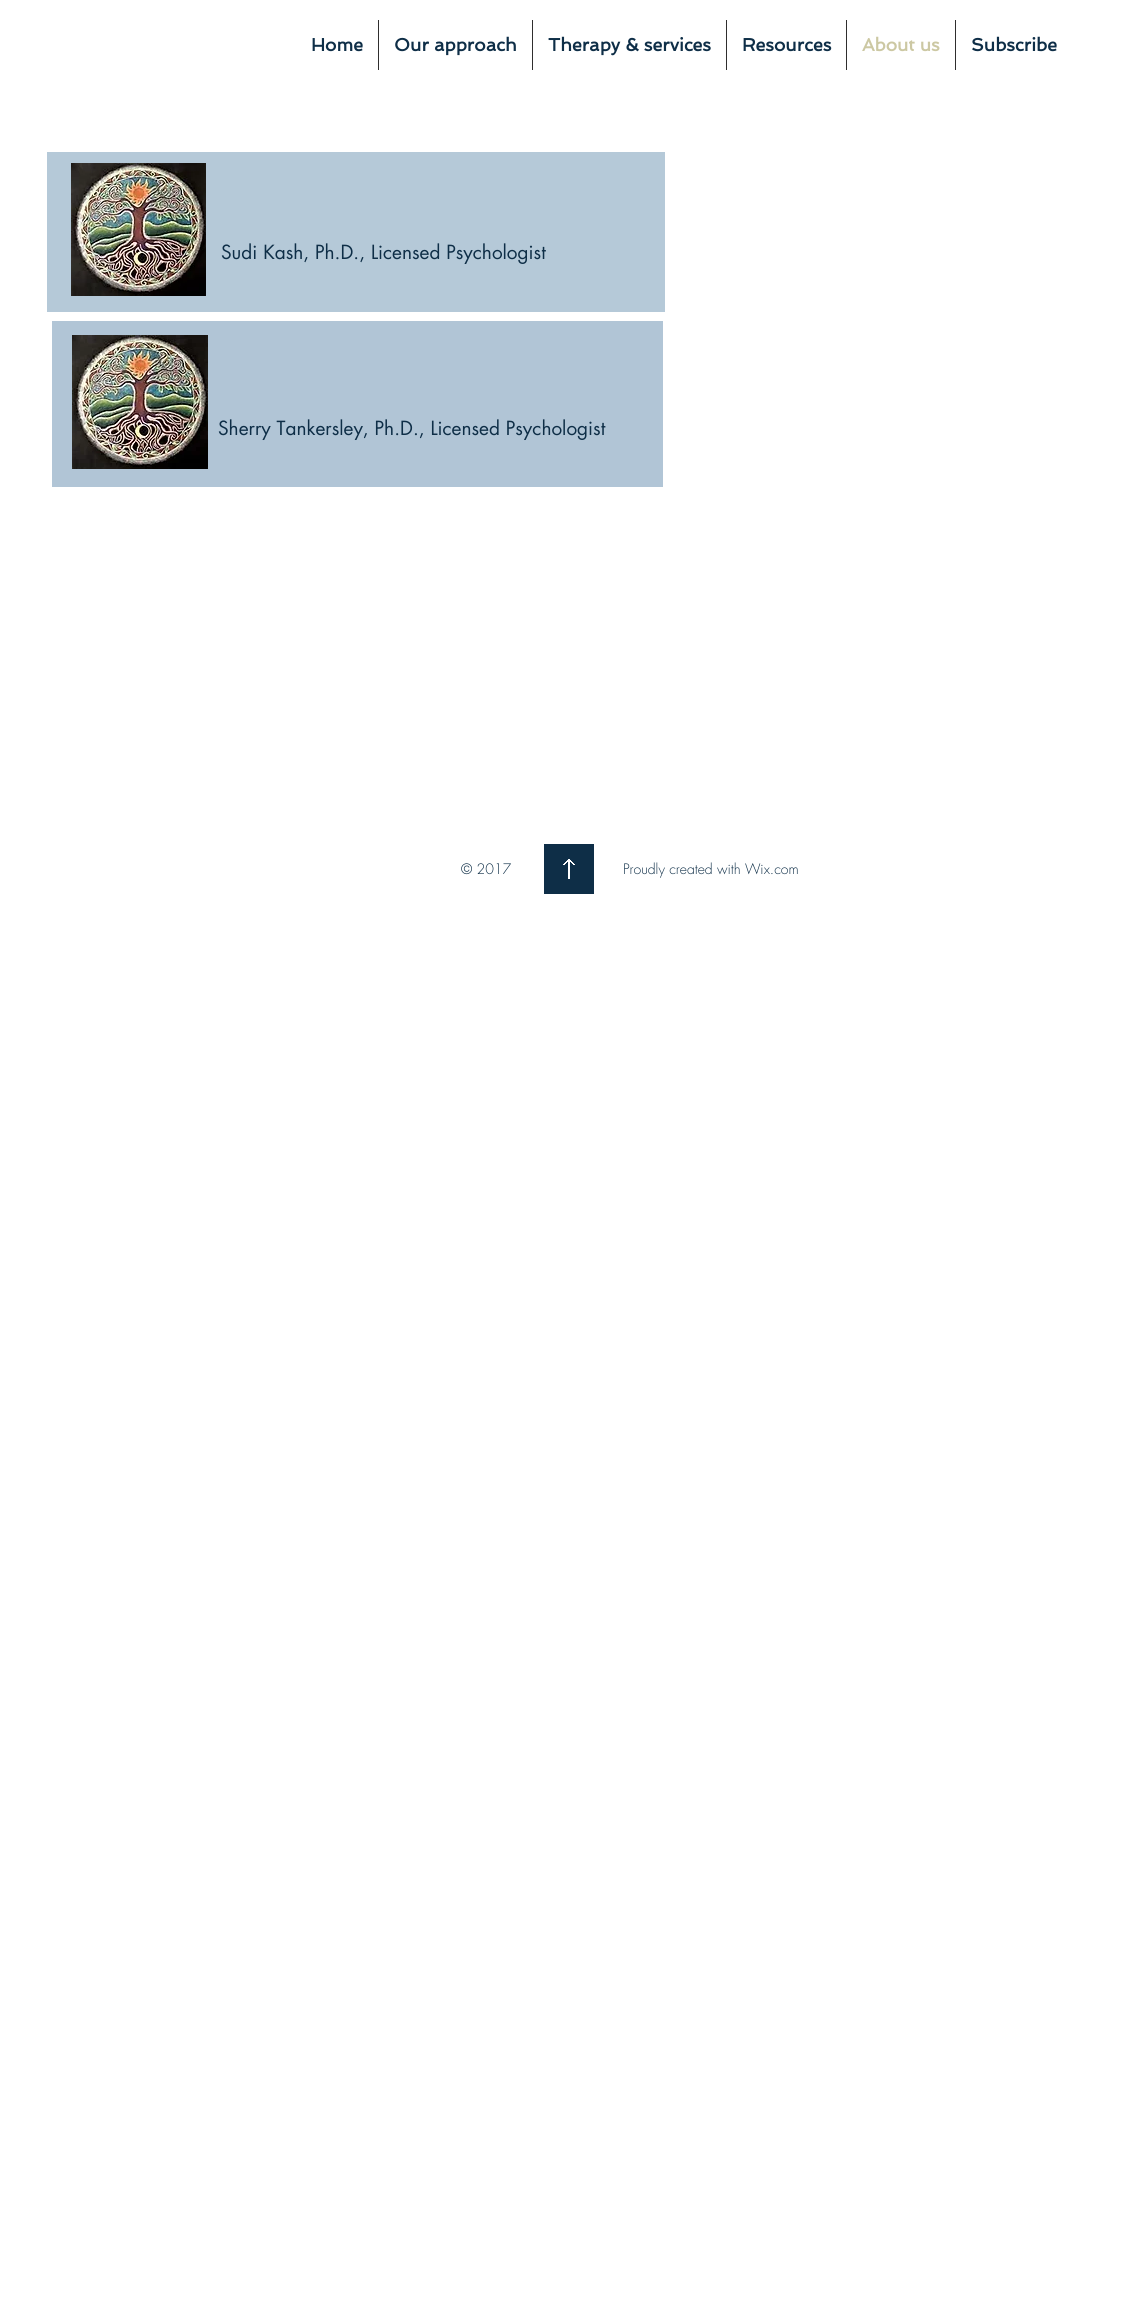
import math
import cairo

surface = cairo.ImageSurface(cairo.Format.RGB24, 1140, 2308)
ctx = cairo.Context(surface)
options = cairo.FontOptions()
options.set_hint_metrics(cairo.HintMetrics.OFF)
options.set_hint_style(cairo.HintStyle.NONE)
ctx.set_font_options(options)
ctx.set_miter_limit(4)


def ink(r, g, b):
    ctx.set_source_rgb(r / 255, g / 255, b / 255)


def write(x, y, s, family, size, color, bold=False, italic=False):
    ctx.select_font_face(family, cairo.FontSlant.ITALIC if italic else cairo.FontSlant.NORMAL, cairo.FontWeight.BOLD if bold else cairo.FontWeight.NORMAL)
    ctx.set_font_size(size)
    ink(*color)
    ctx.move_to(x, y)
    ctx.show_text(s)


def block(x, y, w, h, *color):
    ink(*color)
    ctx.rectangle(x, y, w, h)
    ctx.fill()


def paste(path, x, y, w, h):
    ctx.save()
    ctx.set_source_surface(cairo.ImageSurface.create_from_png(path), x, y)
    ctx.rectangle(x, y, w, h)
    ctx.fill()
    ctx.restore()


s1 = dict(family="Spinnaker", size=18, color=(14, 46, 71), bold=True)
s2 = dict(family="Spinnaker", size=18, color=(204, 200, 163), bold=True)
s3 = dict(family="futura", size=19, color=(14, 46, 71))
s4 = dict(family="futura Light", size=14, color=(14, 46, 71))

ink(255, 255, 255)
ctx.paint()
write(311, 51, "Home", **s1)
block(378, 20, 1, 50, 47, 46, 46)
write(394, 51, "Our approach", **s1)
block(532, 20, 1, 50, 47, 46, 46)
write(548, 51, "Therapy & services", **s1)
block(726, 20, 1, 50, 47, 46, 46)
write(742, 51, "Resources", **s1)
block(846, 20, 1, 50, 47, 46, 46)
write(862, 51, "About us", **s2)
block(955, 20, 1, 50, 47, 46, 46)
write(971, 51, "Subscribe", **s1)
block(47, 152, 618, 160, 181, 201, 216)
paste("pic1.png", 71, 163, 135, 133)
write(221, 259, "Sudi Kash, Ph.D., Licensed Psychologist", **s3)
block(52, 321, 611, 166, 177, 197, 214)
paste("pic2.png", 72, 335, 136, 134)
write(218, 435, "Sherry Tankersley, Ph.D., Licensed Psychologist", **s3)
write(461, 874, "© 2017", **s4)
paste("pic3.png", 544, 844, 50, 50)
write(623, 874, "Proudly created with Wix.com", **s4)
surface.write_to_png("screenshot.png")
